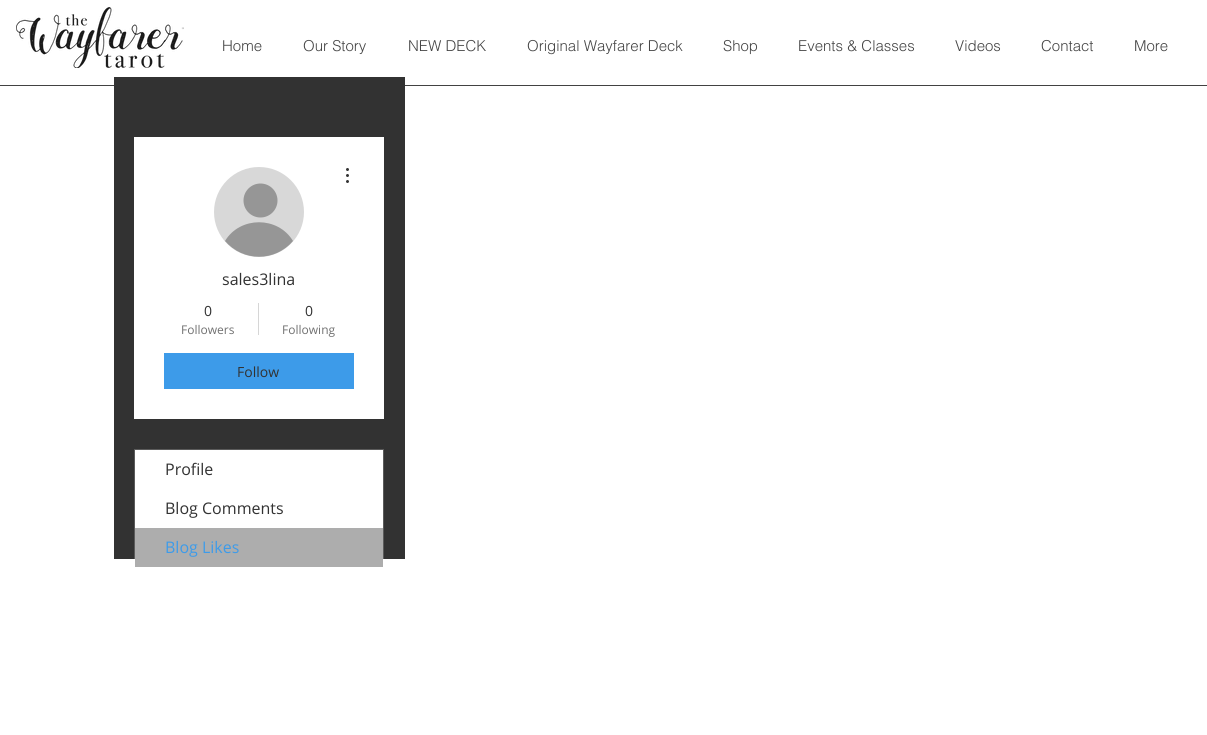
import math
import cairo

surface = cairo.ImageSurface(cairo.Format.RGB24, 1207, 735)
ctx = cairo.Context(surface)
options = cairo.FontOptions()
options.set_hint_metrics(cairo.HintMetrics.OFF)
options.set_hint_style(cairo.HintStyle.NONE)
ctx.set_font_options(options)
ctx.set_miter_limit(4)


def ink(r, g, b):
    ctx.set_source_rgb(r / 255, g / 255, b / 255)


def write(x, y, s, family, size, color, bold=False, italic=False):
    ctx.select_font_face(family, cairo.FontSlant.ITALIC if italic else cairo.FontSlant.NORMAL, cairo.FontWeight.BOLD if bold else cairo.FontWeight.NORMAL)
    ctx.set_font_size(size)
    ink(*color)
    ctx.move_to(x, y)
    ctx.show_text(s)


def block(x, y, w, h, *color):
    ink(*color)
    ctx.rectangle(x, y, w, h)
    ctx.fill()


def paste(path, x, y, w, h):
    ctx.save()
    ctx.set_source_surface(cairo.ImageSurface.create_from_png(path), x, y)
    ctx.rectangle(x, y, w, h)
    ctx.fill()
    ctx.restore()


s1 = dict(family="helvetica Light", size=15, color=(68, 68, 68))
s2 = dict(family="Open Sans", size=16, color=(50, 50, 50))
s3 = dict(family="Open Sans", size=14, color=(50, 50, 50))
s4 = dict(family="Open Sans", size=12, color=(112, 112, 112))
s5 = dict(family="Open Sans", size=16, color=(61, 155, 233))

ink(255, 255, 255)
ctx.paint()
paste("pic1.png", 16, 7, 168, 61)
write(222, 51, "Home", **s1)
write(303, 51, "Our Story", **s1)
write(408, 51, "NEW DECK", **s1)
write(527, 51, "Original Wayfarer Deck", **s1)
write(723, 51, "Shop", **s1)
write(798, 51, "Events & Classes", **s1)
write(955, 51, "Videos", **s1)
write(1041, 51, "Contact", **s1)
write(1134, 51, "More", **s1)
block(0, 85, 1207, 1, 66, 66, 66)
block(114, 77, 291, 482, 50, 50, 50)
block(134, 137, 250, 282, 255, 255, 255)
ink(216, 216, 216)
ctx.new_path()
ctx.arc(259, 212, 45, 0, 2 * math.pi)
ctx.fill()
ink(150, 150, 150)
ctx.arc(260.5, 200.5, 17, 0, 2 * math.pi)
ctx.fill()
ctx.new_path()
ctx.move_to(293, 241)
ctx.curve_to(275, 262, 243, 262, 225, 241)
ctx.curve_to(240, 216, 278, 216, 293, 241)
ctx.close_path()
ctx.fill()
paste("pic2.png", 346, 168, 3, 15)
write(222, 285, "sales3lina", **s2)
write(204, 316, "0", **s3)
write(181, 334, "Followers", **s4)
block(258, 303, 1, 32, 214, 214, 214)
write(305, 316, "0", **s3)
write(282, 334, "Following", **s4)
block(164, 353, 190, 36, 61, 155, 233)
write(237, 377, "Follow", **s3)
ctx.rectangle(134.5, 449.5, 249, 118)
ctx.set_source_rgba(1, 1, 1, 0.2)
ctx.set_line_width(1)
ctx.stroke()
block(135, 450, 248, 78, 255, 255, 255)
write(165, 475, "Profile", **s2)
write(165, 514, "Blog Comments", **s2)
block(135, 528, 248, 39, 173, 173, 173)
write(165, 553, "Blog Likes", **s5)
surface.write_to_png("screenshot.png")
